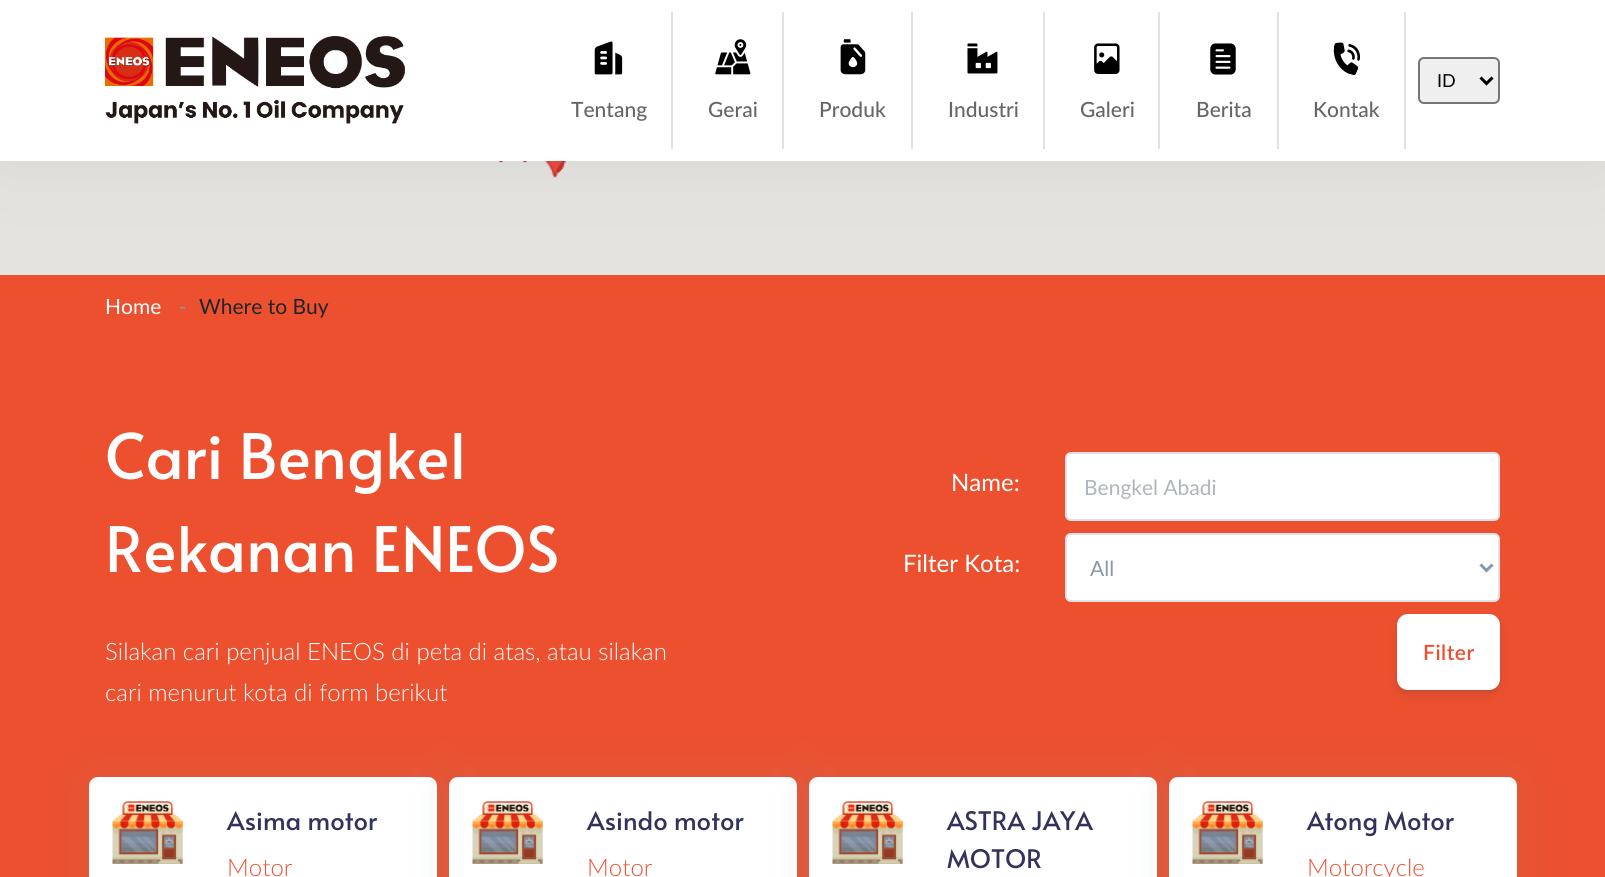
import math
import cairo

surface = cairo.ImageSurface(cairo.Format.RGB24, 1605, 877)
ctx = cairo.Context(surface)
options = cairo.FontOptions()
options.set_hint_metrics(cairo.HintMetrics.OFF)
options.set_hint_style(cairo.HintStyle.NONE)
ctx.set_font_options(options)
ctx.set_miter_limit(4)


def ink(r, g, b):
    ctx.set_source_rgb(r / 255, g / 255, b / 255)


def write(x, y, s, family, size, color, bold=False, italic=False):
    ctx.select_font_face(family, cairo.FontSlant.ITALIC if italic else cairo.FontSlant.NORMAL, cairo.FontWeight.BOLD if bold else cairo.FontWeight.NORMAL)
    ctx.set_font_size(size)
    ink(*color)
    ctx.move_to(x, y)
    ctx.show_text(s)


def write_spaced(x, y, s, letter, word):
    ctx.move_to(x, y)
    for ch in s:
        ctx.show_text(ch)
        ctx.rel_move_to(letter + word * (ch == ' '), 0)


def block(x, y, w, h, *color):
    ink(*color)
    ctx.rectangle(x, y, w, h)
    ctx.fill()


def round_path(x, y, w, h, r):
    ctx.new_sub_path()
    for i, (u, v) in enumerate([(x + w - r, y + h - r), (x + r, y + h - r), (x + r, y + r), (x + w - r, y + r)]):
        ctx.arc(u, v, r, i * math.pi / 2, (i + 1) * math.pi / 2)
    ctx.close_path()


def blur_box(x, y, w, h, r, blur, alpha):
    ctx.push_group_with_content(cairo.Content.ALPHA)
    ctx.set_operator(cairo.Operator.SOURCE)
    for i in range(15, -16, -2):
        e = blur * i / 6
        if min(w, h) + 2 * e > 0:
            ctx.set_source_rgba(0, 0, 0, alpha * math.erfc((i - 1) / 8.5) / 2)
            round_path(x - e, y - e, w + 2 * e, h + 2 * e, max(0, min(r + e + blur * .6, min(w, h) / 2 + e)))
            ctx.fill()
    ctx.mask(ctx.pop_group())


def paste(path, x, y, w, h):
    ctx.save()
    ctx.set_source_surface(cairo.ImageSurface.create_from_png(path), x, y)
    ctx.rectangle(x, y, w, h)
    ctx.fill()
    ctx.restore()


s1 = dict(family="Lato", size=18, color=(0, 0, 0))
s2 = dict(family="Lato Medium", size=21, color=(102, 102, 102))
s3 = dict(family="Lato", size=21, color=(255, 255, 255))
s4 = dict(family="Lato", size=21, color=(136, 152, 170))
s5 = dict(family="Lato", size=21, color=(33, 37, 41))
s6 = dict(family="Alata", size=62.5, color=(255, 255, 255))
s7 = dict(family="Lato Light", size=24, color=(255, 255, 255))
s8 = dict(family="Lato", size=24, color=(255, 255, 255))
s9 = dict(family="Lato", size=21, color=(173, 181, 189))
s10 = dict(family="Alata", size=25.5, color=(50, 50, 93))
s11 = dict(family="Lato Light", size=24, color=(236, 80, 46))

ink(236, 80, 46)
ctx.paint()
block(0, 161, 1605, 114, 229, 227, 223)
paste("pic9.png", 499, 161, 67, 17)
ink(136, 152, 170)
blur_box(0, 0, 1605, 161, 0, 36, 0.18)
block(0, 0, 1605, 161, 255, 255, 255)
paste("pic1.png", 105, 36, 300, 88)
ink(239, 239, 239)
round_path(1419, 58, 80, 45, 5)
ctx.fill_preserve()
ink(118, 118, 118)
ctx.stroke()
ctx.new_path()
ctx.move_to(1480.5, 77.5)
ctx.line_to(1486.5, 83.5)
ctx.line_to(1492.5, 77.5)
ink(0, 0, 0)
ctx.set_line_width(3)
ctx.stroke()
write(1437, 87, "ID", **s1)
block(671, 12, 2, 137, 226, 226, 226)
paste("pic2.png", 594, 41, 29, 34)
write(571, 117, "Tentang", **s2)
block(782, 12, 2, 137, 226, 226, 226)
paste("pic3.png", 715, 39, 36, 36)
write(708, 117, "Gerai", **s2)
block(911, 12, 2, 137, 226, 226, 226)
paste("pic4.png", 840, 39, 26, 36)
write(819, 117, "Produk", **s2)
block(1043, 12, 2, 137, 226, 226, 226)
paste("pic5.png", 967, 43, 31, 31)
write(948, 117, "Industri", **s2)
block(1158, 12, 2, 137, 226, 226, 226)
paste("pic6.png", 1094, 43, 26, 31)
write(1080, 117, "Galeri", **s2)
block(1277, 12, 2, 137, 226, 226, 226)
paste("pic7.png", 1210, 43, 26, 32)
write(1196, 117, "Berita", **s2)
block(1404, 12, 2, 137, 226, 226, 226)
paste("pic8.png", 1333, 42, 27, 33)
write(1313, 117, "Kontak", **s2)
write(105, 314, "Home", **s3)
write(179, 314, "-", **s4)
write(199, 314, "Where to Buy", **s5)
write(105, 479, "Cari Bengkel", **s6)
write(105, 572, "Rekanan ENEOS", **s6)
write(105, 660, "Silakan cari penjual ENEOS di peta di atas, atau silakan", **s7)
write(105, 701, "cari menurut kota di form berikut", **s7)
write(951, 491, "Name:", **s8)
round_path(1066, 453, 433, 67, 5)
ctx.fill_preserve()
ink(222, 226, 230)
ctx.set_line_width(2)
ctx.stroke()
write(1084, 495, "Bengkel Abadi", **s9)
write(903, 572, "Filter Kota:", **s8)
round_path(1066, 534, 433, 67, 5)
ctx.fill_preserve()
ink(222, 226, 230)
ctx.stroke()
ctx.new_path()
ctx.move_to(1480.5, 564.5)
ctx.line_to(1486.5, 570.5)
ctx.line_to(1492.5, 564.5)
ink(136, 152, 170)
ctx.set_line_width(3)
ctx.stroke()
write(1090, 576, "All", **s4)
ink(0, 0, 0)
blur_box(1397, 615, 103, 77, 11, 2, 0.08)
ink(50, 50, 93)
blur_box(1397, 620, 103, 76, 11, 4.5, 0.11)
ink(255, 255, 255)
round_path(1398, 615, 101, 74, 10)
ctx.fill_preserve()
ctx.set_line_width(2)
ctx.stroke()
ctx.select_font_face("Lato SemiBold")
ink(236, 80, 46)
write_spaced(1423, 660, "Filter", 0.5, 0)
ink(136, 152, 170)
blur_box(89, 777, 348, 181, 9, 24, 0.15)
ink(255, 255, 255)
round_path(89, 777, 348, 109, 9)
ctx.fill()
paste("pic10.png", 112, 801, 71, 63)
write(227, 830, "Asima motor", **s10)
write(227, 876, "Motor", **s11)
ink(136, 152, 170)
blur_box(449, 777, 348, 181, 9, 24, 0.15)
ink(255, 255, 255)
round_path(449, 777, 348, 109, 9)
ctx.fill()
paste("pic10.png", 472, 801, 71, 63)
write(587, 830, "Asindo motor", **s10)
write(587, 876, "Motor", **s11)
ink(136, 152, 170)
blur_box(809, 777, 348, 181, 9, 24, 0.15)
ink(255, 255, 255)
round_path(809, 777, 348, 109, 9)
ctx.fill()
paste("pic10.png", 832, 801, 71, 63)
write(947, 830, "ASTRA JAYA", **s10)
write(947, 868, "MOTOR", **s10)
ink(136, 152, 170)
blur_box(1169, 777, 348, 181, 9, 24, 0.15)
ink(255, 255, 255)
round_path(1169, 777, 348, 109, 9)
ctx.fill()
paste("pic10.png", 1192, 801, 71, 63)
write(1307, 830, "Atong Motor", **s10)
write(1307, 876, "Motorcycle", **s11)
surface.write_to_png("screenshot.png")
